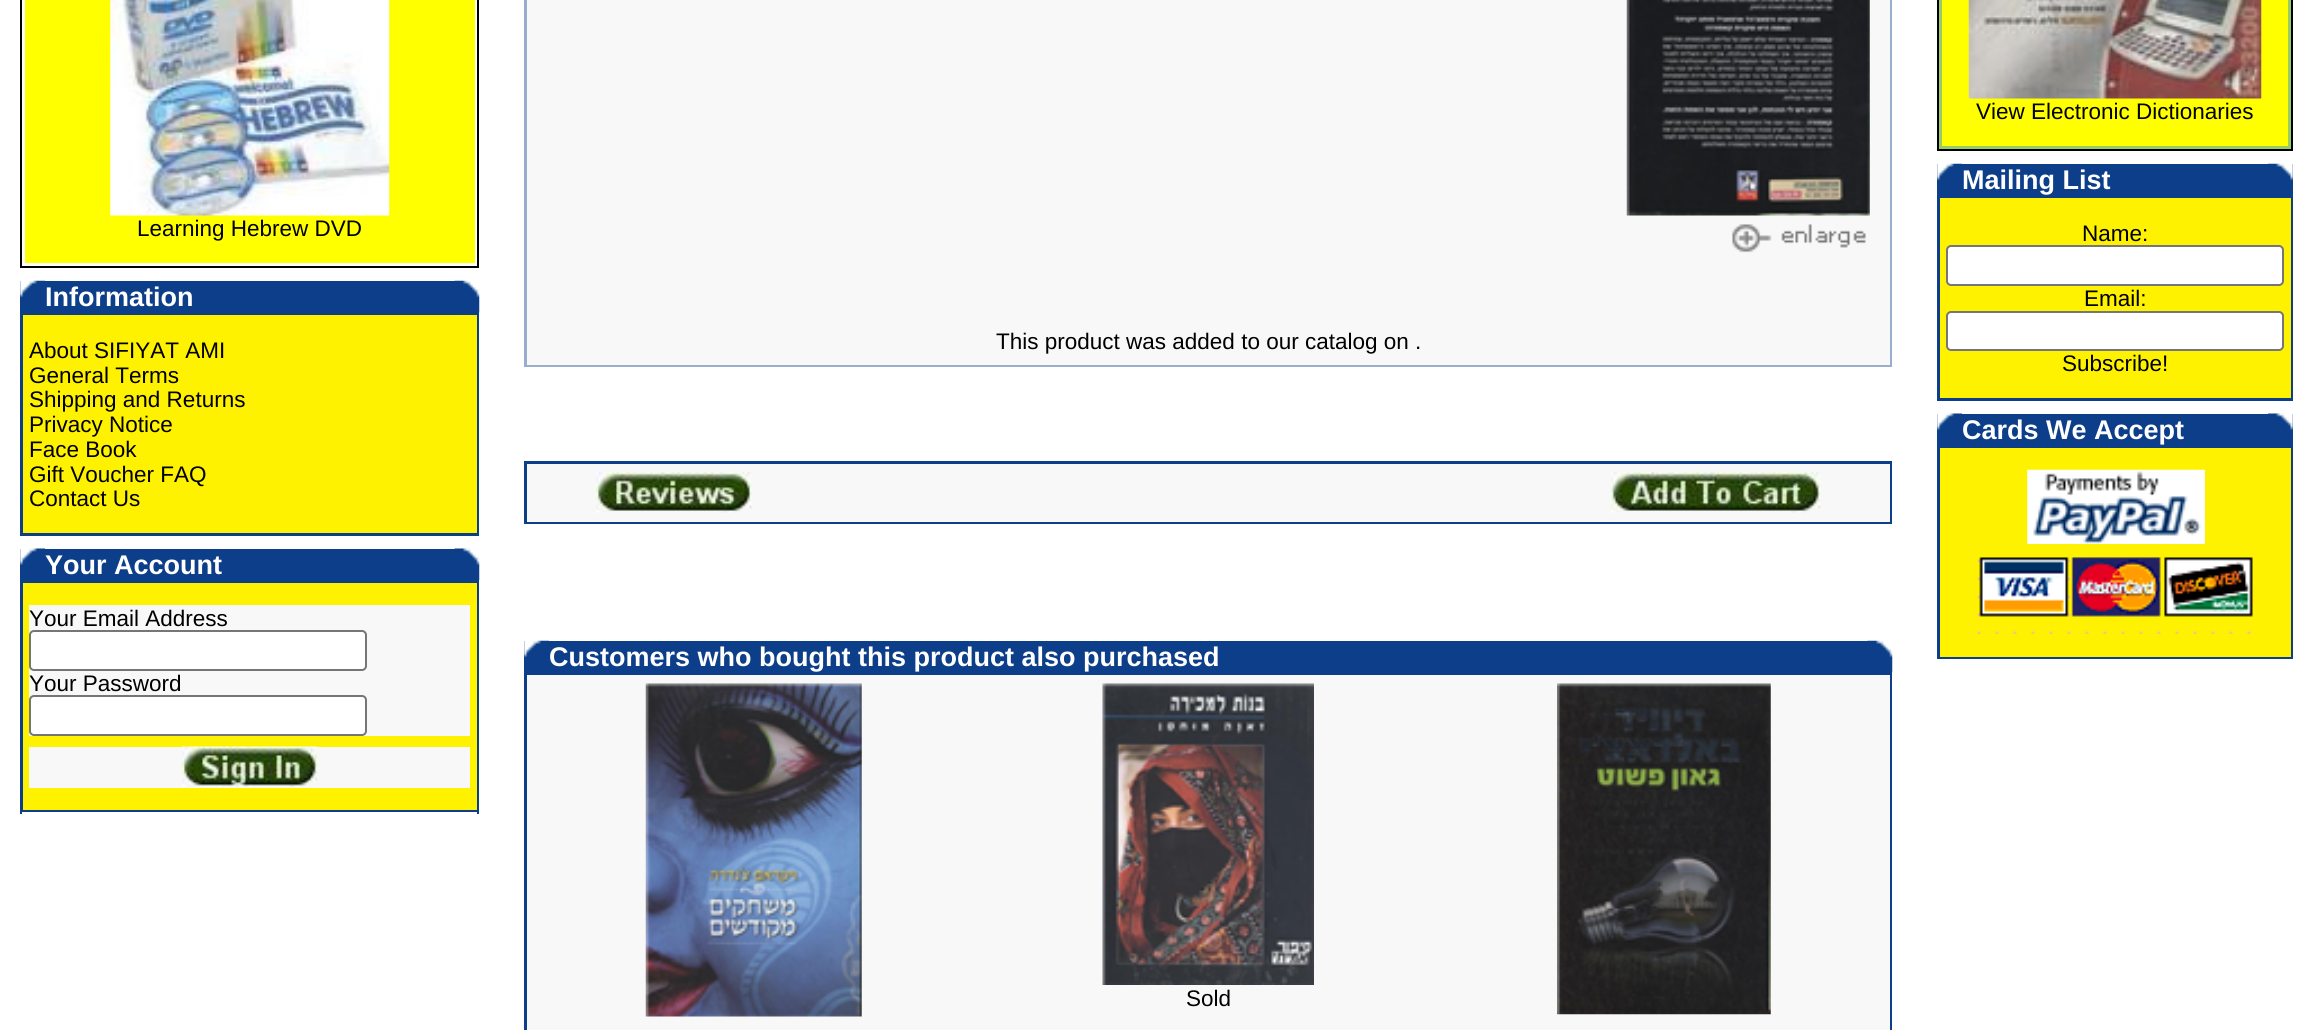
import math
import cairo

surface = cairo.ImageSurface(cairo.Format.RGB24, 2311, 1030)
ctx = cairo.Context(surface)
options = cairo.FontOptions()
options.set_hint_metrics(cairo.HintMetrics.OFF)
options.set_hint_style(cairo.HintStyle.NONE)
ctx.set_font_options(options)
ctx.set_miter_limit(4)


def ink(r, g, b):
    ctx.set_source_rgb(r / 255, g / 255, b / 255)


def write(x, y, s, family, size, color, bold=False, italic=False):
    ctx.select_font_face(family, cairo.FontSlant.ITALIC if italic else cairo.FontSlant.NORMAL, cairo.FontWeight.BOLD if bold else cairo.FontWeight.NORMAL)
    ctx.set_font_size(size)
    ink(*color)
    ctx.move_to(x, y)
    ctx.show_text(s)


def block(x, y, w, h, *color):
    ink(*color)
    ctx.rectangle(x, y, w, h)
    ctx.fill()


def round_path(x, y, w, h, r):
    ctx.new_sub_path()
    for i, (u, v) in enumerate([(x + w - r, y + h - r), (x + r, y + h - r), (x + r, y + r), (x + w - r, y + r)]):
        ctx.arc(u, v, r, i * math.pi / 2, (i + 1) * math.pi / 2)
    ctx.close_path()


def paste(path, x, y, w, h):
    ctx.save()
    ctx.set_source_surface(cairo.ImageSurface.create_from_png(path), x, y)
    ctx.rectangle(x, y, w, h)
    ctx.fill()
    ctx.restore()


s1 = dict(family="Liberation Sans", size=22.5, color=(0, 0, 0))
s2 = dict(family="Liberation Sans", size=27, color=(255, 255, 255), bold=True)

ink(255, 255, 255)
ctx.paint()
ctx.rectangle(21, -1, 457, 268)
ink(0, 0, 0)
ctx.stroke()
block(25, 0, 450, 263, 255, 255, 0)
paste("pic1.png", 110, 0, 280, 216)
write(137, 236, "Learning Hebrew DVD", **s1)
block(20, 281, 435, 32, 12, 62, 137)
paste("pic2.png", 20, 280, 25, 18)
block(455, 312, 24, 1, 12, 62, 137)
paste("pic3.png", 454, 280, 26, 33)
write(45, 306, "Information", **s2)
block(20, 313, 459, 223, 12, 62, 137)
block(23, 315, 454, 218, 254, 242, 0)
write(29, 358, "About SIFIYAT AMI", **s1)
write(29, 383, "General Terms", **s1)
write(29, 407, "Shipping and Returns", **s1)
write(29, 432, "Privacy Notice", **s1)
write(29, 457, "Face Book", **s1)
write(29, 482, "Gift Voucher FAQ", **s1)
write(29, 506, "Contact Us", **s1)
block(20, 549, 435, 32, 12, 62, 137)
paste("pic4.png", 20, 548, 25, 17)
block(455, 580, 24, 1, 12, 62, 137)
paste("pic5.png", 454, 548, 26, 32)
write(45, 574, "Your Account", **s2)
block(20, 581, 459, 231, 12, 62, 137)
block(23, 583, 454, 227, 254, 242, 0)
block(29, 605, 441, 131, 248, 248, 249)
write(29, 626, "Your Email Address", **s1)
ink(255, 255, 255)
round_path(30, 631, 336, 39, 4)
ctx.fill_preserve()
ink(118, 118, 118)
ctx.stroke()
write(29, 691, "Your Password", **s1)
ink(255, 255, 255)
round_path(30, 696, 336, 39, 4)
ctx.fill_preserve()
ink(118, 118, 118)
ctx.stroke()
block(29, 747, 441, 41, 248, 248, 249)
paste("pic6.png", 182, 746, 136, 41)
block(20, 812, 2, 2, 12, 62, 137)
block(477, 812, 2, 2, 12, 62, 137)
block(524, 0, 1368, 367, 153, 174, 206)
block(527, 0, 1363, 365, 248, 248, 249)
paste("pic7.png", 1626, 0, 244, 216)
paste("pic8.png", 1732, 224, 134, 29)
write(996, 349, "This product was added to our catalog on .", **s1)
block(524, 461, 1368, 63, 12, 62, 137)
block(527, 464, 1363, 58, 248, 248, 249)
paste("pic9.png", 596, 472, 156, 41)
paste("pic10.png", 1611, 472, 210, 41)
block(524, 641, 1344, 32, 12, 62, 137)
paste("pic11.png", 524, 640, 25, 18)
block(1868, 672, 24, 1, 12, 62, 137)
paste("pic12.png", 1867, 640, 26, 33)
write(549, 666, "Customers who bought this product also purchased", **s2)
block(524, 673, 1368, 357, 12, 62, 137)
block(527, 675, 1363, 355, 248, 248, 249)
paste("pic13.png", 645, 683, 217, 334)
paste("pic14.png", 1102, 683, 212, 302)
write(1186, 1006, "Sold", **s1)
paste("pic15.png", 1557, 683, 214, 332)
ink(153, 204, 102)
ctx.rectangle(1938, -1, 354, 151)
ctx.fill_preserve()
ink(0, 0, 0)
ctx.stroke()
block(1942, 0, 346, 146, 255, 255, 0)
paste("pic16.png", 1968, 0, 294, 99)
write(1976, 119, "View Electronic Dictionaries", **s1)
block(1937, 164, 356, 237, 12, 62, 137)
paste("pic17.png", 1937, 163, 25, 18)
write(1962, 189, "Mailing List", **s2)
paste("pic18.png", 2268, 163, 25, 18)
block(1940, 198, 351, 200, 254, 242, 0)
write(2082, 241, "Name:", **s1)
ink(255, 255, 255)
round_path(1947, 246, 336, 39, 4)
ctx.fill_preserve()
ink(118, 118, 118)
ctx.stroke()
write(2084, 306, "Email:", **s1)
ink(255, 255, 255)
round_path(1947, 312, 336, 38, 4)
ctx.fill_preserve()
ink(118, 118, 118)
ctx.stroke()
write(2062, 371, "Subscribe!", **s1)
block(1937, 414, 356, 245, 12, 62, 137)
paste("pic19.png", 1937, 413, 25, 17)
write(1962, 439, "Cards We Accept", **s2)
paste("pic20.png", 2268, 413, 25, 17)
block(1940, 448, 351, 209, 254, 242, 0)
paste("pic21.png", 2027, 469, 178, 75)
paste("pic22.png", 1977, 557, 276, 77)
surface.write_to_png("screenshot.png")
